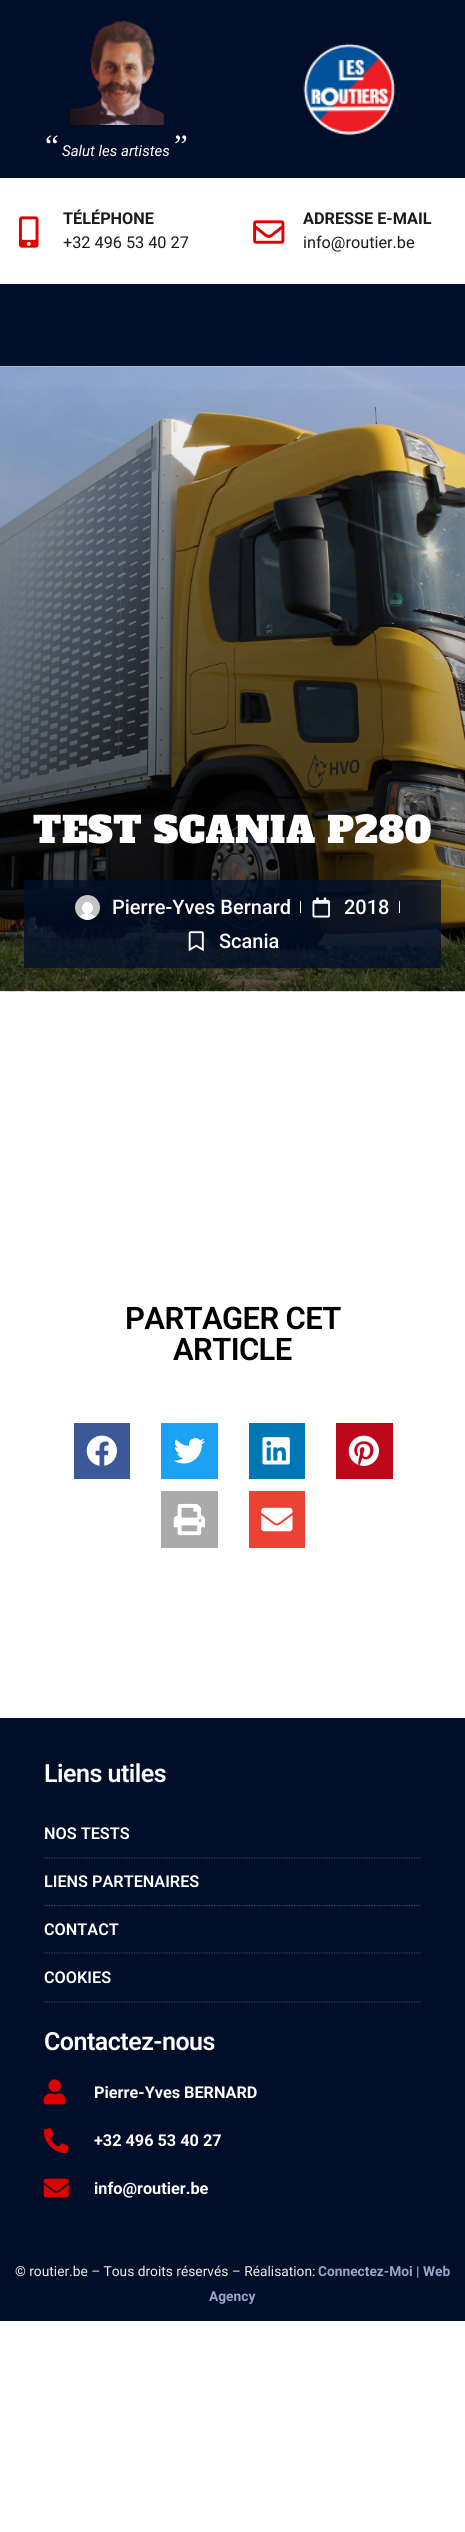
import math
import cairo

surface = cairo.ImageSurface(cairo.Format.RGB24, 465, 2532)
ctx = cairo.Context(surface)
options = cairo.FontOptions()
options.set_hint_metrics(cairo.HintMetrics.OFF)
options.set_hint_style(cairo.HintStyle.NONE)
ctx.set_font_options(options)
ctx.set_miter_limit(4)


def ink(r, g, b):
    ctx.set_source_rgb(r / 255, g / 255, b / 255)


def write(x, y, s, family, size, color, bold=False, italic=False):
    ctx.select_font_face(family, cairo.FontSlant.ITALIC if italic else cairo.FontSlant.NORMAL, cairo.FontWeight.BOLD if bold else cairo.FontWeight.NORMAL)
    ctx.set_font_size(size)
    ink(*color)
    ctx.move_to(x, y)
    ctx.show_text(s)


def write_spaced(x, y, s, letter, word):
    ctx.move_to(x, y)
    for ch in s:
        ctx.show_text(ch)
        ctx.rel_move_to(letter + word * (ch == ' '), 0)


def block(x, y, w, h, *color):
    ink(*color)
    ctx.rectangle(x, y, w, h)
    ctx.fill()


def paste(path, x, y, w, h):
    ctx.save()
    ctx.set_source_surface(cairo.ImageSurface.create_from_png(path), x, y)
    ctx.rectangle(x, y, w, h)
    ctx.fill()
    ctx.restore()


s1 = dict(family="Liberation Serif", size=31, color=(255, 255, 255))
s2 = dict(family="Roboto", size=15, color=(255, 255, 255), italic=True)
s3 = dict(family="Roboto", size=16.25, color=(26, 26, 26), bold=True)
s4 = dict(family="Roboto", size=16.25, color=(26, 26, 26))
s5 = dict(family="Roboto Medium", size=20, color=(255, 255, 255))
s6 = dict(family="Roboto SemiBold", size=16.25, color=(255, 255, 255))
s7 = dict(family="Roboto", size=16.25, color=(255, 255, 255), bold=True)
s8 = dict(family="Roboto", size=13.75, color=(237, 237, 237))
s9 = dict(family="Roboto", size=13.75, color=(151, 167, 201), bold=True)

ink(255, 255, 255)
ctx.paint()
block(0, 0, 465, 178, 1, 14, 42)
paste("pic1.png", 303, 43, 93, 93)
paste("pic2.png", 70, 20, 94, 105)
write(45, 156, "“", **s1)
write(174, 156, "”", **s1)
write(62, 156, "Salut les artistes", **s2)
paste("pic3.png", 19, 216, 20, 32)
write(63, 224, "TÉLÉPHONE", **s3)
write(63, 248, "+32 496 53 40 27", **s4)
paste("pic4.png", 253, 220, 32, 24)
write(303, 224, "ADRESSE E-MAIL", **s3)
write(303, 248, "info@routier.be", **s4)
block(0, 284, 465, 82, 1, 14, 42)
paste("pic5.png", 0, 366, 465, 626)
gradient = cairo.LinearGradient(232, 366, 233, 991)
gradient.add_color_stop_rgba(0, 0, 0, 0, 0)
gradient.add_color_stop_rgba(1, 0, 0, 0, 0.57)
ctx.set_source(gradient)
ctx.rectangle(0, 389, 465, 602)
ctx.fill()
ctx.select_font_face("Alfa Slab One")
ctx.set_font_size(36.25)
ink(255, 255, 255)
write_spaced(33, 843, "TEST SCANIA P280", 0.6, 0)
ctx.set_source_rgba(0, 0.059, 0.165, 0.76)
ctx.rectangle(24, 880, 417, 88)
ctx.fill()
paste("pic6.png", 75, 895, 25, 25)
write(112, 914, "Pierre-Yves Bernard", **s5)
block(300, 901, 1, 12, 255, 255, 255)
paste("pic7.png", 312, 897, 18, 21)
write(344, 914, "2018", **s5)
block(399, 901, 1, 12, 255, 255, 255)
paste("pic8.png", 188, 931, 16, 21)
write(219, 948, "Scania", **s5)
ctx.select_font_face("Roboto SemiBold")
ctx.set_font_size(31)
ink(0, 0, 0)
write_spaced(125, 1329, "PARTAGER CET", -0.6, 0)
write_spaced(173, 1360, "ARTICLE", -0.6, 0)
block(74, 1423, 56, 56, 59, 89, 152)
paste("pic9.png", 86, 1435, 31, 31)
block(161, 1423, 57, 56, 29, 161, 242)
paste("pic10.png", 174, 1438, 31, 26)
block(249, 1423, 56, 56, 0, 119, 181)
paste("pic11.png", 262, 1437, 28, 28)
block(336, 1423, 57, 56, 189, 8, 28)
paste("pic12.png", 348, 1435, 31, 31)
block(161, 1491, 57, 57, 170, 170, 170)
paste("pic13.png", 173, 1503, 32, 33)
block(249, 1491, 56, 57, 234, 67, 53)
paste("pic14.png", 261, 1507, 32, 25)
block(0, 1718, 465, 603, 1, 14, 42)
ctx.set_font_size(25)
ink(255, 255, 255)
write_spaced(44, 1782, "Liens utiles", -0.5, 0)
ctx.new_path()
ctx.move_to(44, 1858)
ctx.line_to(421, 1858)
ink(62, 67, 78)
ctx.set_line_width(1.2)
ctx.set_dash([1.25, 1.25])
ctx.stroke()
write(44, 1839, "NOS TESTS", **s6)
ctx.new_path()
ctx.move_to(44, 1905.5)
ctx.line_to(421, 1905.5)
ink(62, 67, 78)
ctx.stroke()
write(44, 1887, "LIENS PARTENAIRES", **s6)
ctx.new_path()
ctx.move_to(44, 1953)
ctx.line_to(421, 1953)
ink(62, 67, 78)
ctx.stroke()
write(44, 1935, "CONTACT", **s6)
ctx.new_path()
ctx.move_to(44, 2002)
ctx.line_to(421, 2002)
ink(62, 67, 78)
ctx.stroke()
write(44, 1983, "COOKIES", **s6)
ctx.set_font_size(25)
write_spaced(44, 2050, "Contactez-nous", -0.5, 0)
paste("pic15.png", 43, 2079, 23, 26)
write(94, 2098, "Pierre-Yves BERNARD", **s7)
paste("pic16.png", 43, 2128, 26, 26)
write(94, 2146, "+32 496 53 40 27", **s7)
paste("pic17.png", 43, 2178, 26, 20)
write(94, 2194, "info@routier.be", **s7)
write(15, 2276, "© routier.be – Tous droits réservés – Réalisation:", **s8)
write(318, 2276, "Connectez-Moi | Web", **s9)
write(209, 2301, "Agency", **s9)
surface.write_to_png("screenshot.png")
